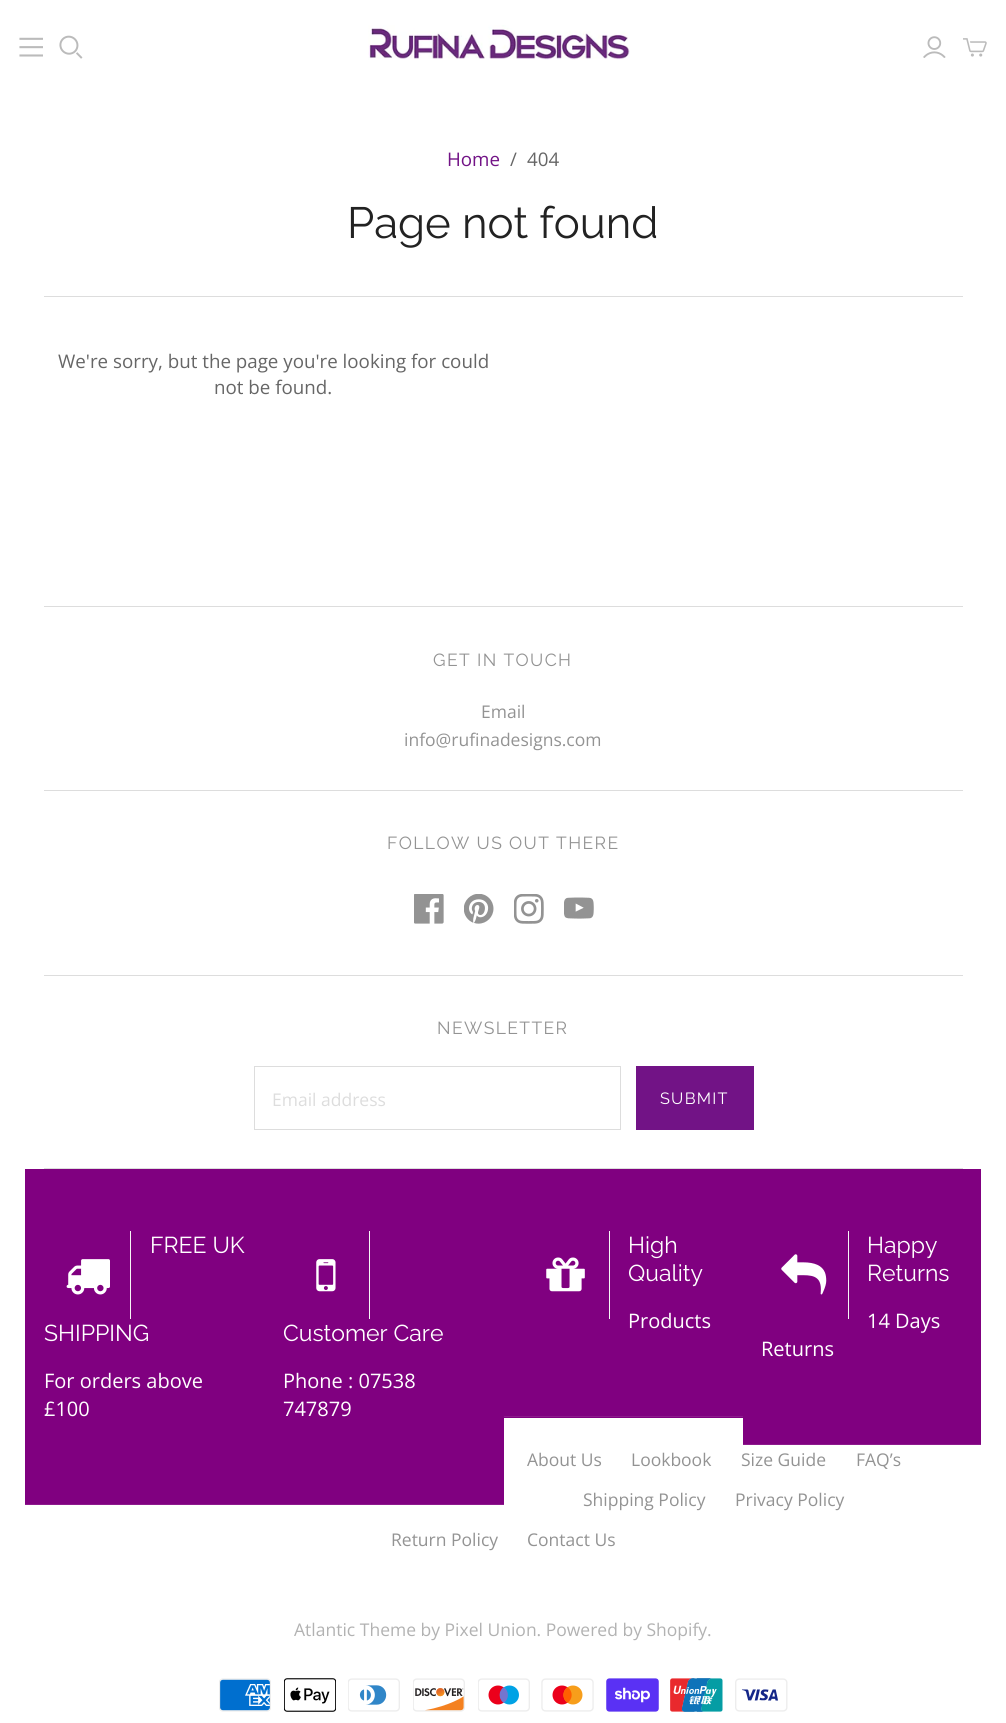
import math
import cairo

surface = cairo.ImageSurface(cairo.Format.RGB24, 1006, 1723)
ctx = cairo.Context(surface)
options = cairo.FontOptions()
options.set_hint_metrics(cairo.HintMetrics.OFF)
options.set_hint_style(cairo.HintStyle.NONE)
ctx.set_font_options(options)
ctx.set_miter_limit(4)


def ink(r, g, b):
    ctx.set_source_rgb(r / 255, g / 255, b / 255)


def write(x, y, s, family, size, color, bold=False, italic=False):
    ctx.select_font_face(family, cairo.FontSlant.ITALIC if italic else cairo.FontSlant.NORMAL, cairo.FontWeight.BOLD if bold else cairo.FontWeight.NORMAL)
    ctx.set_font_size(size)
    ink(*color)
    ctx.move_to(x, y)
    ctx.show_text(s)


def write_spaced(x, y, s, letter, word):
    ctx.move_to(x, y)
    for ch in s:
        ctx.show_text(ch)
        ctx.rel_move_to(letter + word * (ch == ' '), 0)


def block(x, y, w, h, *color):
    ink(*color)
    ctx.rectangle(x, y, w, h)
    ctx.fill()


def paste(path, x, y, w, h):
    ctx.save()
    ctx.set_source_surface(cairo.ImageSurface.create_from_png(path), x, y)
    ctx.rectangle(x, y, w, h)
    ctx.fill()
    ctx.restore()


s1 = dict(family="Open Sans", size=18.75, color=(114, 19, 134))
s2 = dict(family="Open Sans", size=18.75, color=(102, 102, 102))
s3 = dict(family="Raleway", size=43.75, color=(34, 34, 34))
s4 = dict(family="Open Sans", size=17.5, color=(147, 147, 147))
s5 = dict(family="Open Sans", size=17.5, color=(221, 221, 221))
s6 = dict(family="Raleway", size=23, color=(255, 255, 255))
s7 = dict(family="Open Sans", size=20, color=(255, 255, 255))
s8 = dict(family="Open Sans", size=17.5, color=(178, 178, 178))

ink(255, 255, 255)
ctx.paint()
paste("pic1.png", 368, 25, 262, 35)
paste("pic2.png", 19, 37, 24, 20)
paste("pic3.png", 59, 35, 24, 24)
paste("pic4.png", 923, 36, 23, 22)
paste("pic5.png", 963, 38, 24, 19)
write(447, 166, "Home", **s1)
write(510, 166, "/", **s2)
write(527, 166, "404", **s2)
block(44, 296, 919, 1, 221, 221, 221)
write(347, 238, "Page not found", **s3)
write(58, 368, "We're sorry, but the page you're looking for could", **s2)
write(214, 394, "not be found.", **s2)
block(44, 606, 919, 1, 221, 221, 221)
block(44, 1168, 919, 1, 221, 221, 221)
ctx.select_font_face("Raleway")
ctx.set_font_size(17.5)
ink(147, 147, 147)
write_spaced(433, 666, "GET IN TOUCH", 1.4, 0)
write(481, 718, "Email", **s4)
write(404, 746, "info@rufinadesigns.com", **s4)
block(44, 790, 919, 1, 221, 221, 221)
ctx.select_font_face("Raleway")
ink(147, 147, 147)
write_spaced(387, 849, "FOLLOW US OUT THERE", 1.4, 0)
paste("pic6.png", 414, 894, 30, 30)
paste("pic7.png", 464, 894, 30, 30)
paste("pic8.png", 514, 894, 30, 30)
paste("pic9.png", 564, 897, 30, 22)
block(44, 975, 919, 1, 221, 221, 221)
ink(147, 147, 147)
write_spaced(437, 1034, "NEWSLETTER", 1.4, 0)
ctx.rectangle(254.5, 1066.5, 366, 63)
ink(221, 221, 221)
ctx.set_line_width(1)
ctx.stroke()
write(272, 1106, "Email address", **s5)
block(636, 1066, 118, 64, 114, 19, 134)
ctx.select_font_face("Raleway")
ctx.set_font_size(16.25)
ink(255, 255, 255)
write_spaced(660, 1104, "SUBMIT", 1.25, 0)
block(25, 1169, 479, 335, 128, 0, 128)
block(25, 1504, 479, 1, 141, 26, 141)
block(130, 1231, 1, 88, 246, 246, 246)
paste("pic10.png", 66, 1259, 44, 36)
write(150, 1253, "FREE UK", **s6)
write(44, 1341, "SHIPPING", **s6)
write(44, 1388, "For orders above", **s7)
write(44, 1416, "£100", **s7)
block(504, 1169, 239, 249, 128, 0, 128)
block(504, 1416, 239, 1, 141, 26, 141)
block(609, 1231, 1, 88, 246, 246, 246)
paste("pic11.png", 546, 1257, 39, 35)
write(628, 1253, "High", **s6)
write(628, 1281, "Quality", **s6)
write(628, 1328, "Products", **s7)
block(743, 1169, 238, 275, 128, 0, 128)
block(743, 1444, 238, 1, 141, 26, 141)
block(848, 1231, 1, 88, 246, 246, 246)
paste("pic12.png", 781, 1254, 46, 41)
write(867, 1253, "Happy", **s6)
write(867, 1281, "Returns", **s6)
write(867, 1328, "14 Days", **s7)
write(761, 1356, "Returns", **s7)
block(369, 1231, 1, 88, 246, 246, 246)
paste("pic13.png", 316, 1259, 20, 33)
write(283, 1341, "Customer Care", **s6)
write(283, 1388, "Phone : 07538", **s7)
write(283, 1416, "747879", **s7)
write(527, 1466, "About Us", **s4)
write(631, 1466, "Lookbook", **s4)
write(741, 1466, "Size Guide", **s4)
write(856, 1466, "FAQ’s", **s4)
write(583, 1506, "Shipping Policy", **s4)
write(735, 1506, "Privacy Policy", **s4)
write(391, 1546, "Return Policy", **s4)
write(527, 1546, "Contact Us", **s4)
write(294, 1636, "Atlantic Theme by Pixel Union. Powered by Shopify.", **s8)
paste("pic14.png", 219, 1678, 52, 34)
paste("pic15.png", 284, 1678, 52, 34)
paste("pic16.png", 348, 1678, 52, 34)
paste("pic17.png", 413, 1678, 52, 34)
paste("pic18.png", 478, 1678, 52, 34)
paste("pic19.png", 541, 1678, 53, 34)
paste("pic20.png", 606, 1678, 53, 34)
paste("pic21.png", 670, 1678, 53, 34)
paste("pic22.png", 735, 1678, 53, 34)
surface.write_to_png("screenshot.png")
